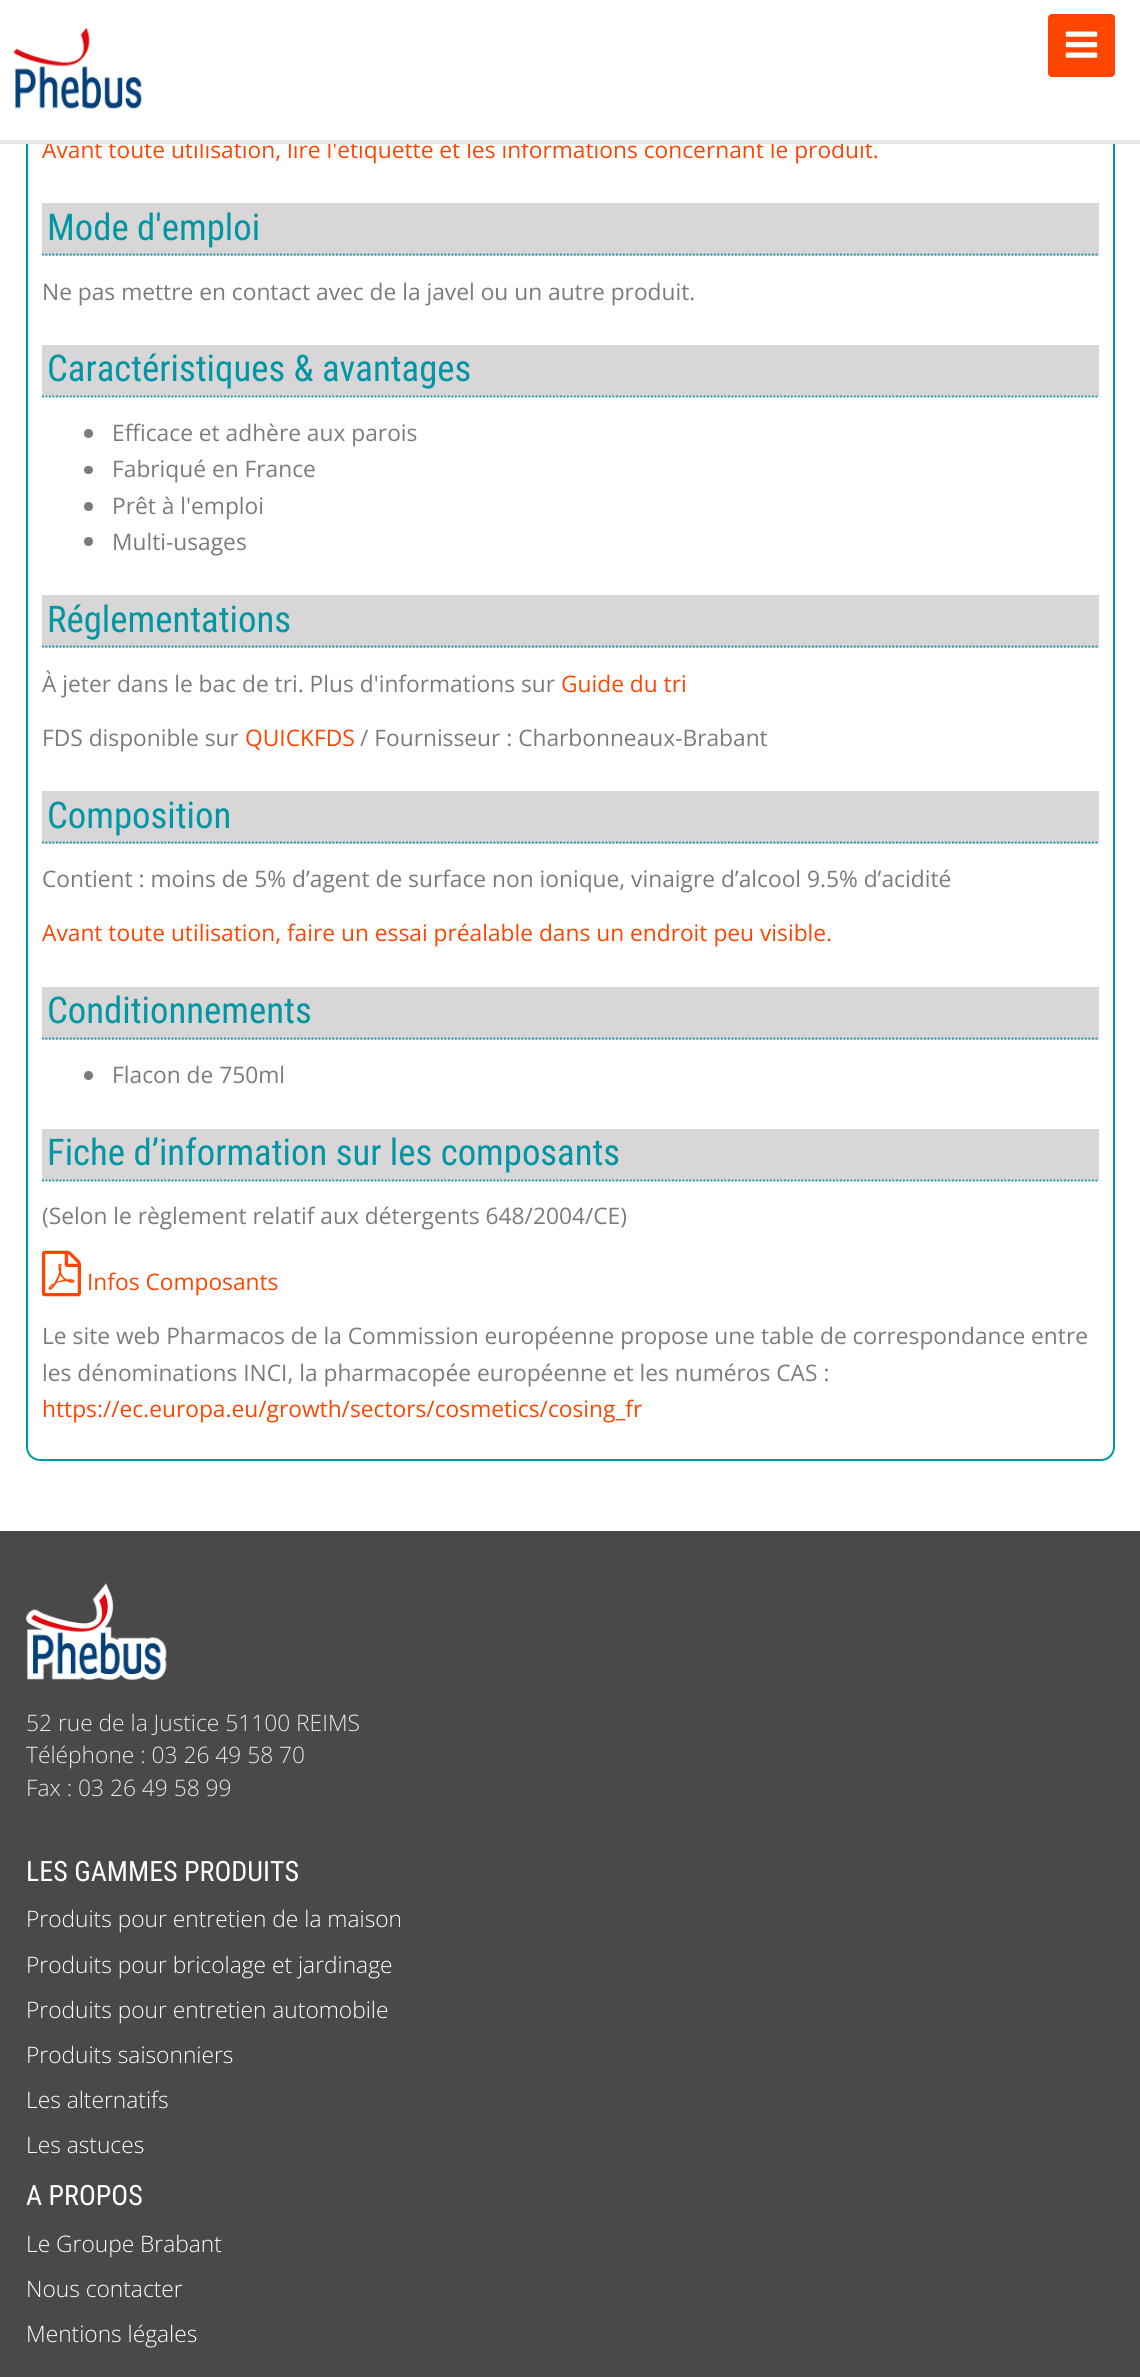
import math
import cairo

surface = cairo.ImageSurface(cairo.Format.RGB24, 1140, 2377)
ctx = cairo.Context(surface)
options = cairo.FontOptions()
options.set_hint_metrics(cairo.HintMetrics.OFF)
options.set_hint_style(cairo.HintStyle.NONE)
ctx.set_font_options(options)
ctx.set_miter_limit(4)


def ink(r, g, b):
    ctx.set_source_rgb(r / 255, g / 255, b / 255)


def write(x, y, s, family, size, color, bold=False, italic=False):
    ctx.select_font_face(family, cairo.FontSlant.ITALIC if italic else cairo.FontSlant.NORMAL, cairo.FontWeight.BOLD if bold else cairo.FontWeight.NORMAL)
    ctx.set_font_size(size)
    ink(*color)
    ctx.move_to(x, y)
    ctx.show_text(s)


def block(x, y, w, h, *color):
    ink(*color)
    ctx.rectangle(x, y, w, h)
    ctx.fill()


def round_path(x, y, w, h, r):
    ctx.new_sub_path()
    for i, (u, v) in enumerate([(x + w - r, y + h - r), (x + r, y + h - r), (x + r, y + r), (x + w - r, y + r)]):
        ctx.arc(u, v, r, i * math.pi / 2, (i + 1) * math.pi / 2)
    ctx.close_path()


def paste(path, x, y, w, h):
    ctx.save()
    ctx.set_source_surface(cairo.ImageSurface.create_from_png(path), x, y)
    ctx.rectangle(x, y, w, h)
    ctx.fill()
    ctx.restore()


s1 = dict(family="Open Sans", size=22.75, color=(255, 69, 0))
s2 = dict(family="Roboto Condensed", size=36.75, color=(1, 150, 163))
s3 = dict(family="Open Sans", size=22.75, color=(123, 123, 123))
s4 = dict(family="Open Sans Light", size=22.75, color=(234, 234, 234))
s5 = dict(family="Roboto Condensed", size=28, color=(255, 255, 255))
s6 = dict(family="Open Sans Light", size=22.75, color=(255, 255, 255))

ink(255, 255, 255)
ctx.paint()
round_path(27, -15, 1087, 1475, 13)
ink(1, 150, 163)
ctx.stroke()
block(26, 0, 1089, 140, 255, 255, 255)
write(42, 158, "Avant toute utilisation, lire l'étiquette et les informations concernant le produit.", **s1)
block(0, 140, 1140, 4, 231, 231, 231)
paste("pic1.png", 13, 28, 129, 82)
ink(255, 69, 0)
round_path(1048, 14, 67, 63, 4)
ctx.fill()
paste("pic2.png", 1065, 31, 33, 27)
block(42, 203, 1057, 53, 216, 214, 214)
ctx.new_path()
ctx.move_to(42, 254.5)
ctx.line_to(1099, 254.5)
ink(1, 150, 163)
ctx.set_line_width(1.8)
ctx.set_dash([1.75, 1.75])
ctx.stroke()
write(47, 240, "Mode d'emploi", **s2)
write(42, 300, "Ne pas mettre en contact avec de la javel ou un autre produit.", **s3)
block(42, 345, 1057, 52, 216, 214, 214)
ctx.new_path()
ctx.move_to(42, 396.5)
ctx.line_to(1099, 396.5)
ink(1, 150, 163)
ctx.stroke()
write(47, 381, "Caractéristiques & avantages", **s2)
ink(123, 123, 123)
ctx.new_path()
ctx.arc(88.5, 433.5, 4.5, 0, 2 * math.pi)
ctx.fill()
write(112, 441, "Efficace et adhère aux parois", **s3)
round_path(84, 466, 9, 8, 4)
ctx.fill()
write(112, 477, "Fabriqué en France", **s3)
ctx.new_path()
ctx.arc(88.5, 506.5, 4.5, 0, 2 * math.pi)
ctx.fill()
write(112, 514, "Prêt à l'emploi", **s3)
ctx.new_path()
ctx.arc(88.5, 541.5, 4.5, 0, 2 * math.pi)
ctx.fill()
write(112, 550, "Multi-usages", **s3)
block(42, 595, 1057, 53, 216, 214, 214)
ctx.new_path()
ctx.move_to(42, 646.5)
ctx.line_to(1099, 646.5)
ink(1, 150, 163)
ctx.stroke()
write(47, 632, "Réglementations", **s2)
write(42, 692, "À jeter dans le bac de tri. Plus d'informations sur", **s3)
write(561, 692, "Guide du tri", **s1)
write(42, 746, "FDS disponible sur", **s3)
write(245, 746, "QUICKFDS", **s1)
write(360, 746, "/ Fournisseur : Charbonneaux-Brabant", **s3)
block(42, 791, 1057, 53, 216, 214, 214)
ctx.new_path()
ctx.move_to(42, 842.5)
ctx.line_to(1099, 842.5)
ink(1, 150, 163)
ctx.stroke()
write(47, 828, "Composition", **s2)
write(42, 887, "Contient : moins de 5% d’agent de surface non ionique, vinaigre d’alcool 9.5% d’acidité", **s3)
write(42, 941, "Avant toute utilisation, faire un essai préalable dans un endroit peu visible.", **s1)
block(42, 987, 1057, 53, 216, 214, 214)
ctx.new_path()
ctx.move_to(42, 1038.5)
ctx.line_to(1099, 1038.5)
ink(1, 150, 163)
ctx.stroke()
write(47, 1023, "Conditionnements", **s2)
ink(123, 123, 123)
ctx.new_path()
ctx.arc(88.5, 1075.5, 4.5, 0, 2 * math.pi)
ctx.fill()
write(112, 1083, "Flacon de 750ml", **s3)
block(42, 1129, 1057, 52, 216, 214, 214)
ctx.new_path()
ctx.move_to(42, 1180.5)
ctx.line_to(1099, 1180.5)
ink(1, 150, 163)
ctx.stroke()
write(47, 1165, "Fiche d’information sur les composants", **s2)
write(42, 1224, "(Selon le règlement relatif aux détergents 648/2004/CE)", **s3)
paste("pic3.png", 42, 1250, 39, 47)
write(87, 1290, "Infos Composants", **s1)
write(42, 1344, "Le site web Pharmacos de la Commission européenne propose une table de correspondance entre", **s3)
write(42, 1381, "les dénominations INCI, la pharmacopée européenne et les numéros CAS :", **s3)
write(42, 1417, "https://ec.europa.eu/growth/sectors/cosmetics/cosing_fr", **s1)
block(0, 1531, 1140, 846, 73, 73, 75)
paste("pic4.png", 26, 1583, 141, 97)
write(26, 1731, "52 rue de la Justice 51100 REIMS", **s4)
write(26, 1763, "Téléphone : 03 26 49 58 70", **s4)
write(26, 1796, "Fax : 03 26 49 58 99", **s4)
write(26, 1881, "LES GAMMES PRODUITS", **s5)
write(26, 1927, "Produits pour entretien de la maison", **s6)
write(26, 1973, "Produits pour bricolage et jardinage", **s6)
write(26, 2018, "Produits pour entretien automobile", **s6)
write(26, 2063, "Produits saisonniers", **s6)
write(26, 2108, "Les alternatifs", **s6)
write(26, 2153, "Les astuces", **s6)
write(26, 2205, "A PROPOS", **s5)
write(26, 2252, "Le Groupe Brabant", **s6)
write(26, 2297, "Nous contacter", **s6)
write(26, 2342, "Mentions légales", **s6)
surface.write_to_png("screenshot.png")
